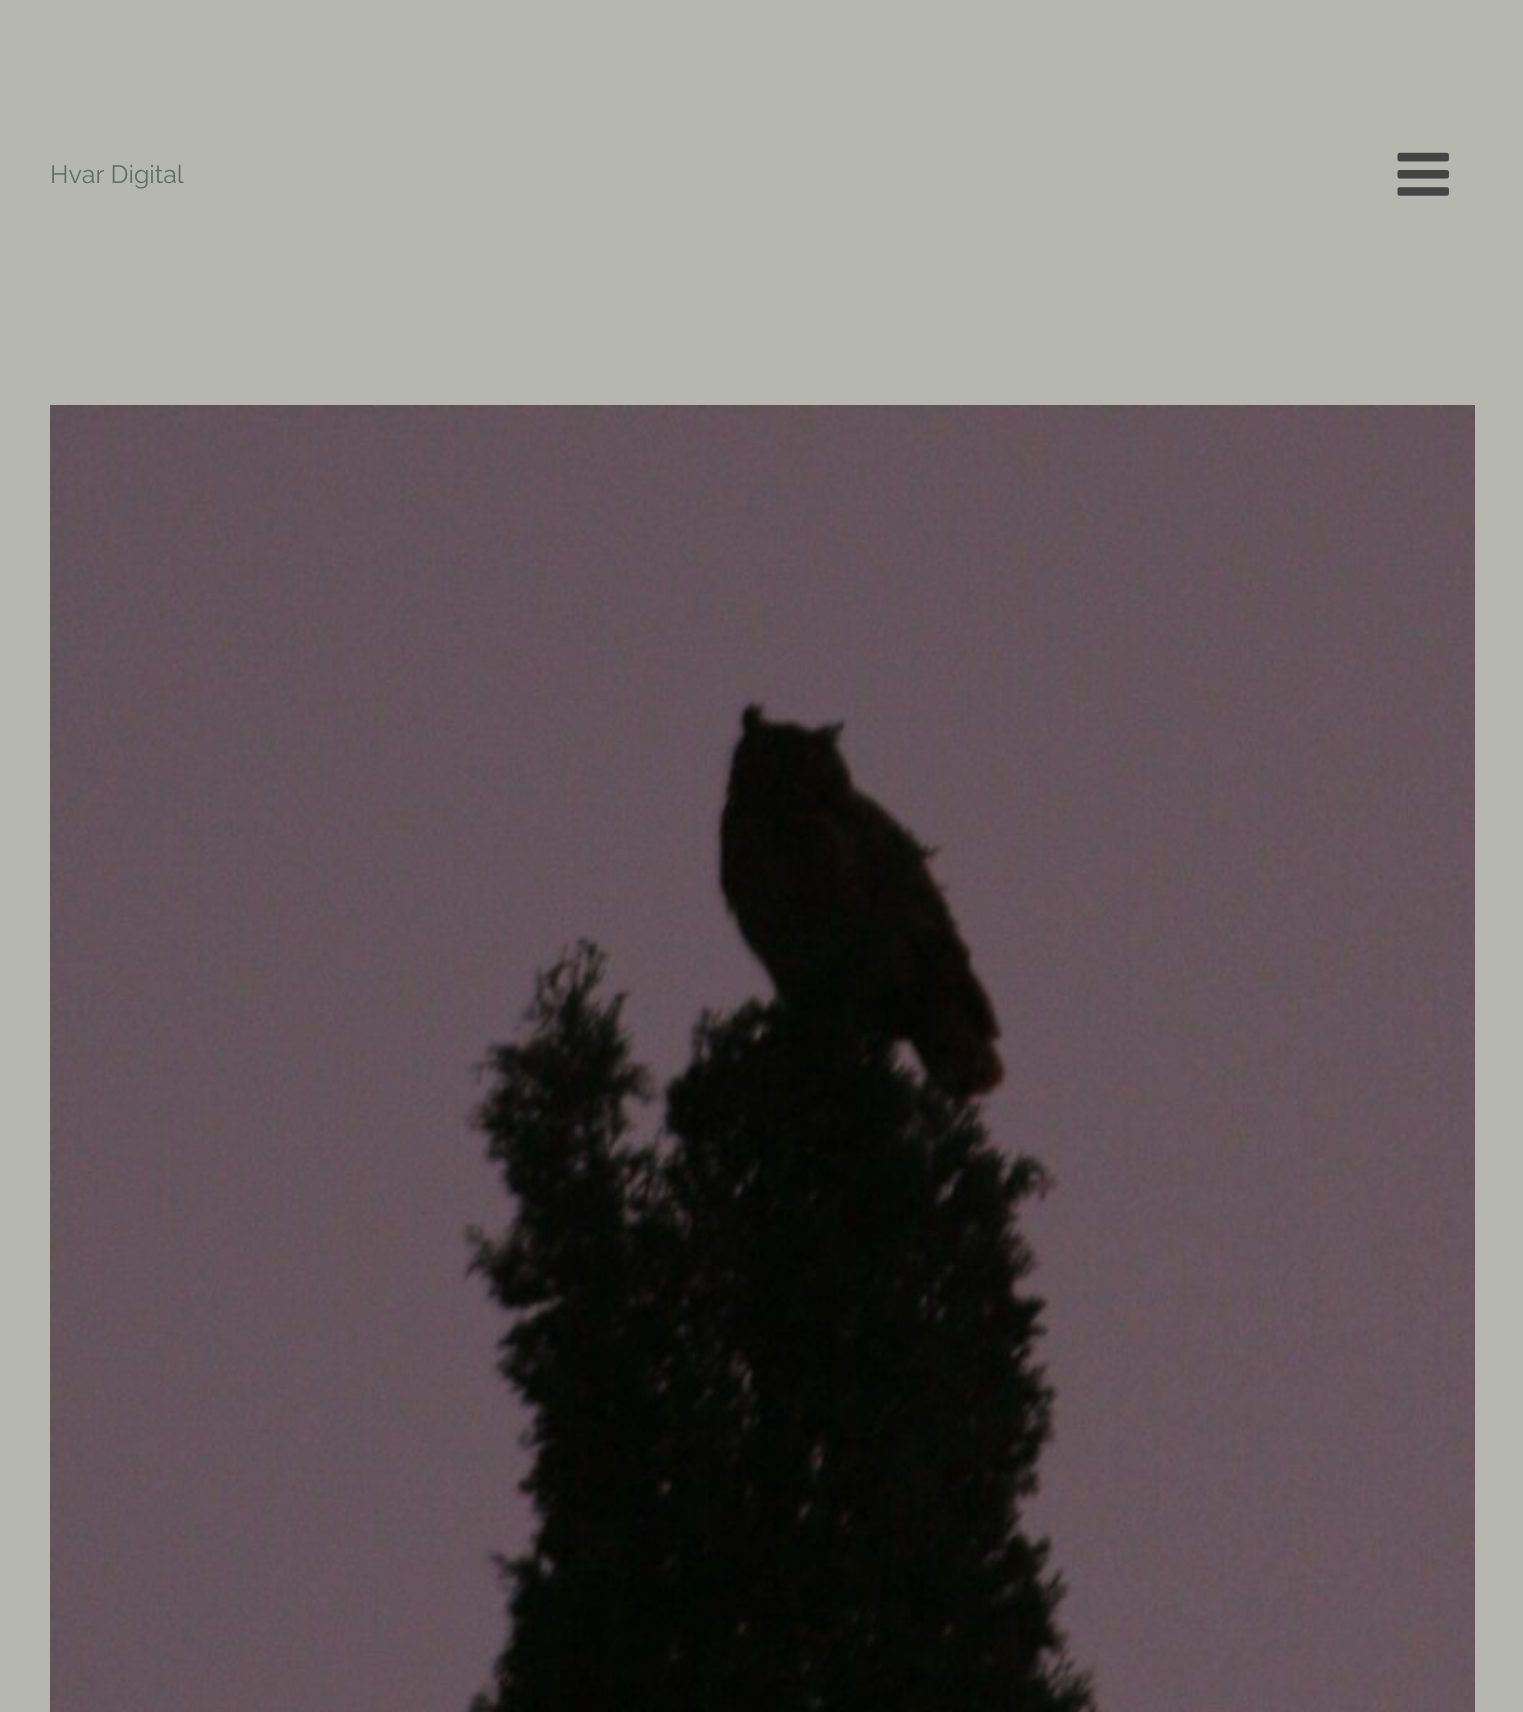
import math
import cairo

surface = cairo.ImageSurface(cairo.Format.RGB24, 1523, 1712)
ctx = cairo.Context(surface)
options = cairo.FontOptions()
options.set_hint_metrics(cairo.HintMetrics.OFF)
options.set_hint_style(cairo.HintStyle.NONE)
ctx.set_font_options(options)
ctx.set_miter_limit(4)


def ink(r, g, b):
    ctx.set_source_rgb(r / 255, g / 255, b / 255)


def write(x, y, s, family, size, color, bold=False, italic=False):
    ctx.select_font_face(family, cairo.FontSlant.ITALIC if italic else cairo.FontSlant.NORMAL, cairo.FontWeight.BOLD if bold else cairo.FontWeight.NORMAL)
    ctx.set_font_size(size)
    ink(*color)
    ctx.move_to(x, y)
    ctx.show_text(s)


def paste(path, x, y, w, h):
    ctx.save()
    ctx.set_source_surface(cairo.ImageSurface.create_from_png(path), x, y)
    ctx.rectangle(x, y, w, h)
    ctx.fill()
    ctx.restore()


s1 = dict(family="Raleway", size=25, color=(98, 109, 93))

ink(182, 183, 175)
ctx.paint()
write(50, 183, "Hvar Digital", **s1)
paste("pic1.png", 1397, 152, 52, 44)
paste("pic2.png", 50, 405, 1425, 1307)
surface.write_to_png("screenshot.png")
